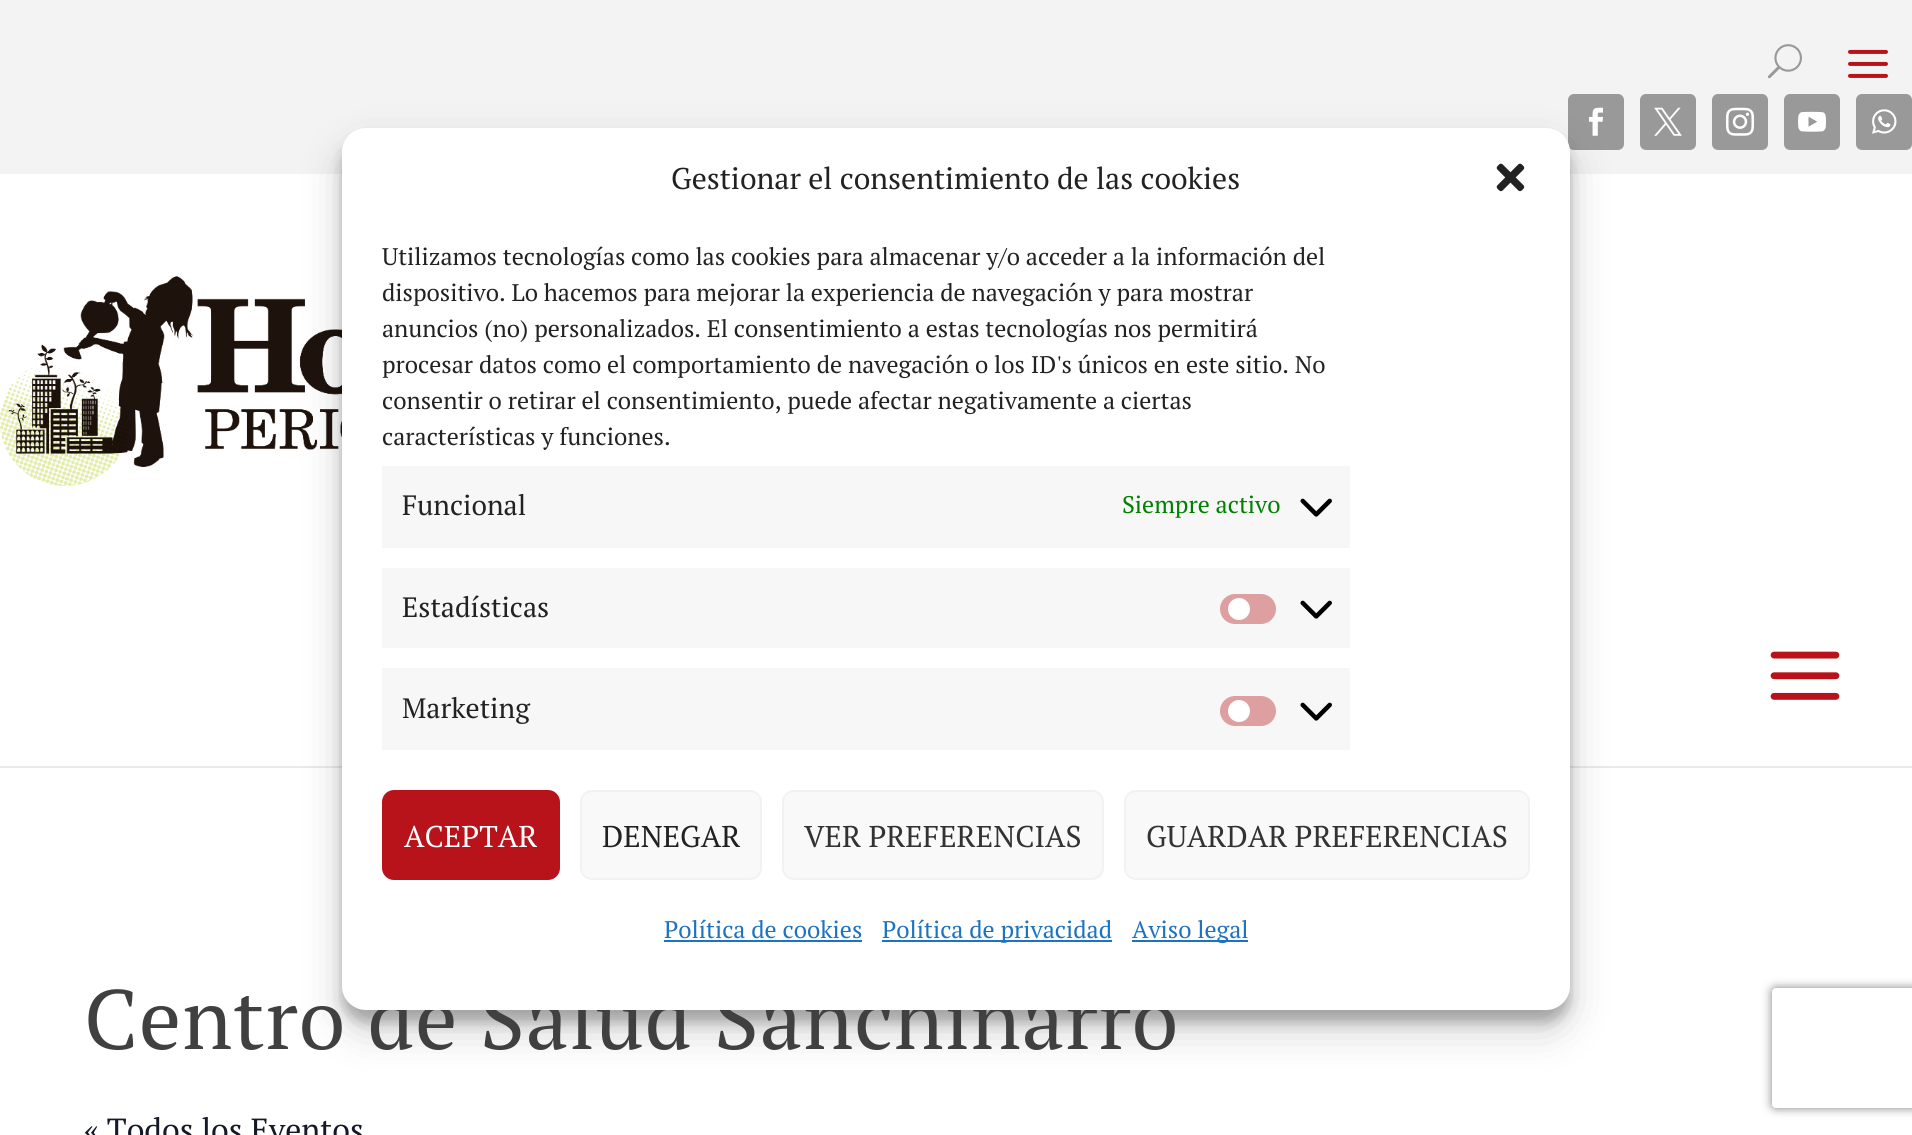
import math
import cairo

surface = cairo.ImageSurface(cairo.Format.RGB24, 1912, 1135)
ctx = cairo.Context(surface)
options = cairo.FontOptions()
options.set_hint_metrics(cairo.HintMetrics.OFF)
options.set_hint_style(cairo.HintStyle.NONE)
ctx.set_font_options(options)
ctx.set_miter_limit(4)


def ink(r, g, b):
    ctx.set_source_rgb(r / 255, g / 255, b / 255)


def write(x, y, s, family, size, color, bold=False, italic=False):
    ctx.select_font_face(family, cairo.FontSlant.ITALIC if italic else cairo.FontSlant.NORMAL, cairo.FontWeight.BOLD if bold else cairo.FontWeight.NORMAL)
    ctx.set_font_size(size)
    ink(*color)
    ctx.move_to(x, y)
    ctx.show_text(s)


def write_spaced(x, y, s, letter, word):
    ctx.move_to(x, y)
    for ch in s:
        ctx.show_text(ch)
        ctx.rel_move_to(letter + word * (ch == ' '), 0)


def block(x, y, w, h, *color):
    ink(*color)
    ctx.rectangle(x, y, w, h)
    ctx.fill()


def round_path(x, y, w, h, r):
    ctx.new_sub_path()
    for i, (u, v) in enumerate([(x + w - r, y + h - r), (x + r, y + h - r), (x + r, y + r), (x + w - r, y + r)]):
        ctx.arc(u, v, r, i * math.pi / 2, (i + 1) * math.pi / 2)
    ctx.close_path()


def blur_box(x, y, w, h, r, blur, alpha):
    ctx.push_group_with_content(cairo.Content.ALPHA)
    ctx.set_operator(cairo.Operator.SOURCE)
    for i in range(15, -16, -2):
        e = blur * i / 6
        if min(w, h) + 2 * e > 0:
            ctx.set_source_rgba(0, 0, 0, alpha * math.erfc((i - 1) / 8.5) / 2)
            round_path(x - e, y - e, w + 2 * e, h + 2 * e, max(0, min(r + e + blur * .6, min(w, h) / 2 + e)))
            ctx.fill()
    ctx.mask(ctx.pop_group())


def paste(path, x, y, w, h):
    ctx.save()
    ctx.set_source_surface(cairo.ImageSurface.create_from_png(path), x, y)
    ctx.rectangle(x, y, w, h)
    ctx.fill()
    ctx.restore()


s1 = dict(family="PT Serif", size=30, color=(34, 34, 34))
s2 = dict(family="PT Serif", size=24, color=(34, 34, 34))
s3 = dict(family="PT Serif", size=28, color=(34, 34, 34))
s4 = dict(family="PT Serif", size=24, color=(0, 128, 0))
s5 = dict(family="PT Serif", size=30, color=(255, 255, 255))
s6 = dict(family="PT Serif", size=30, color=(51, 51, 51))
s7 = dict(family="PT Serif", size=24, color=(30, 115, 190))
s8 = dict(family="PT Serif", size=32, color=(20, 24, 39))

ink(255, 255, 255)
ctx.paint()
block(0, 0, 1912, 174, 243, 243, 243)
ink(153, 153, 153)
round_path(1568, 94, 56, 56, 6)
ctx.fill()
block(0, 766, 1912, 2, 234, 234, 234)
paste("pic10.png", 0, 276, 342, 210)
ink(0, 0, 0)
blur_box(342, 140, 1228, 882, 24, 6, 0.23)
paste("pic5.png", 1589, 107, 14, 29)
blur_box(342, 148, 1228, 882, 24, 20, 0.19)
ctx.select_font_face("PT Serif")
ctx.set_font_size(84)
ink(64, 64, 64)
write_spaced(84, 1049, "Centro de Salud Sanchinarro", 1, 0)
ink(255, 255, 255)
round_path(342, 128, 1228, 882, 24)
ctx.fill()
write(671, 189, "Gestionar el consentimiento de las cookies", **s1)
paste("pic1.png", 1496, 163, 29, 29)
write(382, 265, "Utilizamos tecnologías como las cookies para almacenar y/o acceder a la información del", **s2)
write(382, 301, "dispositivo. Lo hacemos para mejorar la experiencia de navegación y para mostrar", **s2)
write(382, 337, "anuncios (no) personalizados. El consentimiento a estas tecnologías nos permitirá", **s2)
write(382, 373, "procesar datos como el comportamiento de navegación o los ID's únicos en este sitio. No", **s2)
write(382, 409, "consentir o retirar el consentimiento, puede afectar negativamente a ciertas", **s2)
write(382, 445, "características y funciones.", **s2)
block(382, 466, 968, 82, 247, 247, 247)
write(402, 515, "Funcional", **s3)
write(1122, 513, "Siempre activo", **s4)
paste("pic2.png", 1300, 498, 32, 19)
block(382, 568, 968, 80, 247, 247, 247)
write(402, 617, "Estadísticas", **s3)
ink(221, 159, 159)
round_path(1220, 594, 56, 30, 15)
ctx.fill()
ink(255, 255, 255)
ctx.arc(1239, 609, 11, 0, 2 * math.pi)
ctx.fill()
paste("pic2.png", 1300, 600, 32, 19)
block(382, 668, 968, 82, 247, 247, 247)
write(402, 718, "Marketing", **s3)
ink(221, 159, 159)
round_path(1220, 696, 56, 30, 15)
ctx.fill()
ink(255, 255, 255)
ctx.arc(1239, 711, 11, 0, 2 * math.pi)
ctx.fill()
paste("pic2.png", 1300, 702, 32, 19)
ink(184, 19, 26)
round_path(383, 791, 176, 88, 11)
ctx.fill_preserve()
ctx.stroke()
write(404, 847, "ACEPTAR", **s5)
ink(249, 249, 249)
round_path(581, 791, 180, 88, 11)
ctx.fill_preserve()
ink(242, 242, 242)
ctx.stroke()
write(602, 847, "DENEGAR", **s1)
ink(249, 249, 249)
round_path(783, 791, 320, 88, 11)
ctx.fill_preserve()
ink(242, 242, 242)
ctx.stroke()
write(804, 847, "VER PREFERENCIAS", **s6)
ink(249, 249, 249)
round_path(1125, 791, 404, 88, 11)
ctx.fill_preserve()
ink(242, 242, 242)
ctx.stroke()
write(1146, 847, "GUARDAR PREFERENCIAS", **s6)
write(664, 938, "Política de cookies", **s7)
block(664, 940, 198, 2, 30, 115, 190)
block(882, 940, 230, 2, 30, 115, 190)
write(882, 938, "Política de privacidad", **s7)
block(1132, 940, 116, 2, 30, 115, 190)
write(1132, 938, "Aviso legal", **s7)
paste("pic3.png", 1767, 44, 35, 35)
paste("pic4.png", 1848, 49, 40, 29)
ink(153, 153, 153)
round_path(1640, 94, 56, 56, 6)
ctx.fill()
paste("pic6.png", 1654, 107, 28, 29)
round_path(1712, 94, 56, 56, 6)
ctx.fill()
paste("pic7.png", 1726, 107, 28, 29)
round_path(1784, 94, 56, 56, 6)
ctx.fill()
paste("pic8.png", 1798, 111, 28, 21)
round_path(1856, 94, 56, 56, 6)
ctx.fill()
paste("pic9.png", 1872, 109, 25, 25)
paste("pic11.png", 1770, 651, 70, 49)
write(84, 1141, "« Todos los Eventos", **s8)
ctx.save()
ctx.set_fill_rule(cairo.FillRule.EVEN_ODD)
ctx.new_path()
ctx.move_to(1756, 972)
ctx.line_to(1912, 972)
ctx.line_to(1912, 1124)
ctx.line_to(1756, 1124)
ctx.close_path()
ctx.move_to(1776, 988)
ctx.line_to(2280, 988)
ctx.curve_to(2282, 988, 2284, 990, 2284, 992)
ctx.line_to(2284, 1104)
ctx.curve_to(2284, 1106, 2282, 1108, 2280, 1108)
ctx.line_to(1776, 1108)
ctx.curve_to(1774, 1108, 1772, 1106, 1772, 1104)
ctx.line_to(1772, 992)
ctx.curve_to(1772, 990, 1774, 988, 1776, 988)
ctx.close_path()
ctx.clip()
ink(128, 128, 128)
blur_box(1772, 988, 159, 120, 4, 5, 1)
ctx.restore()
surface.write_to_png("screenshot.png")
